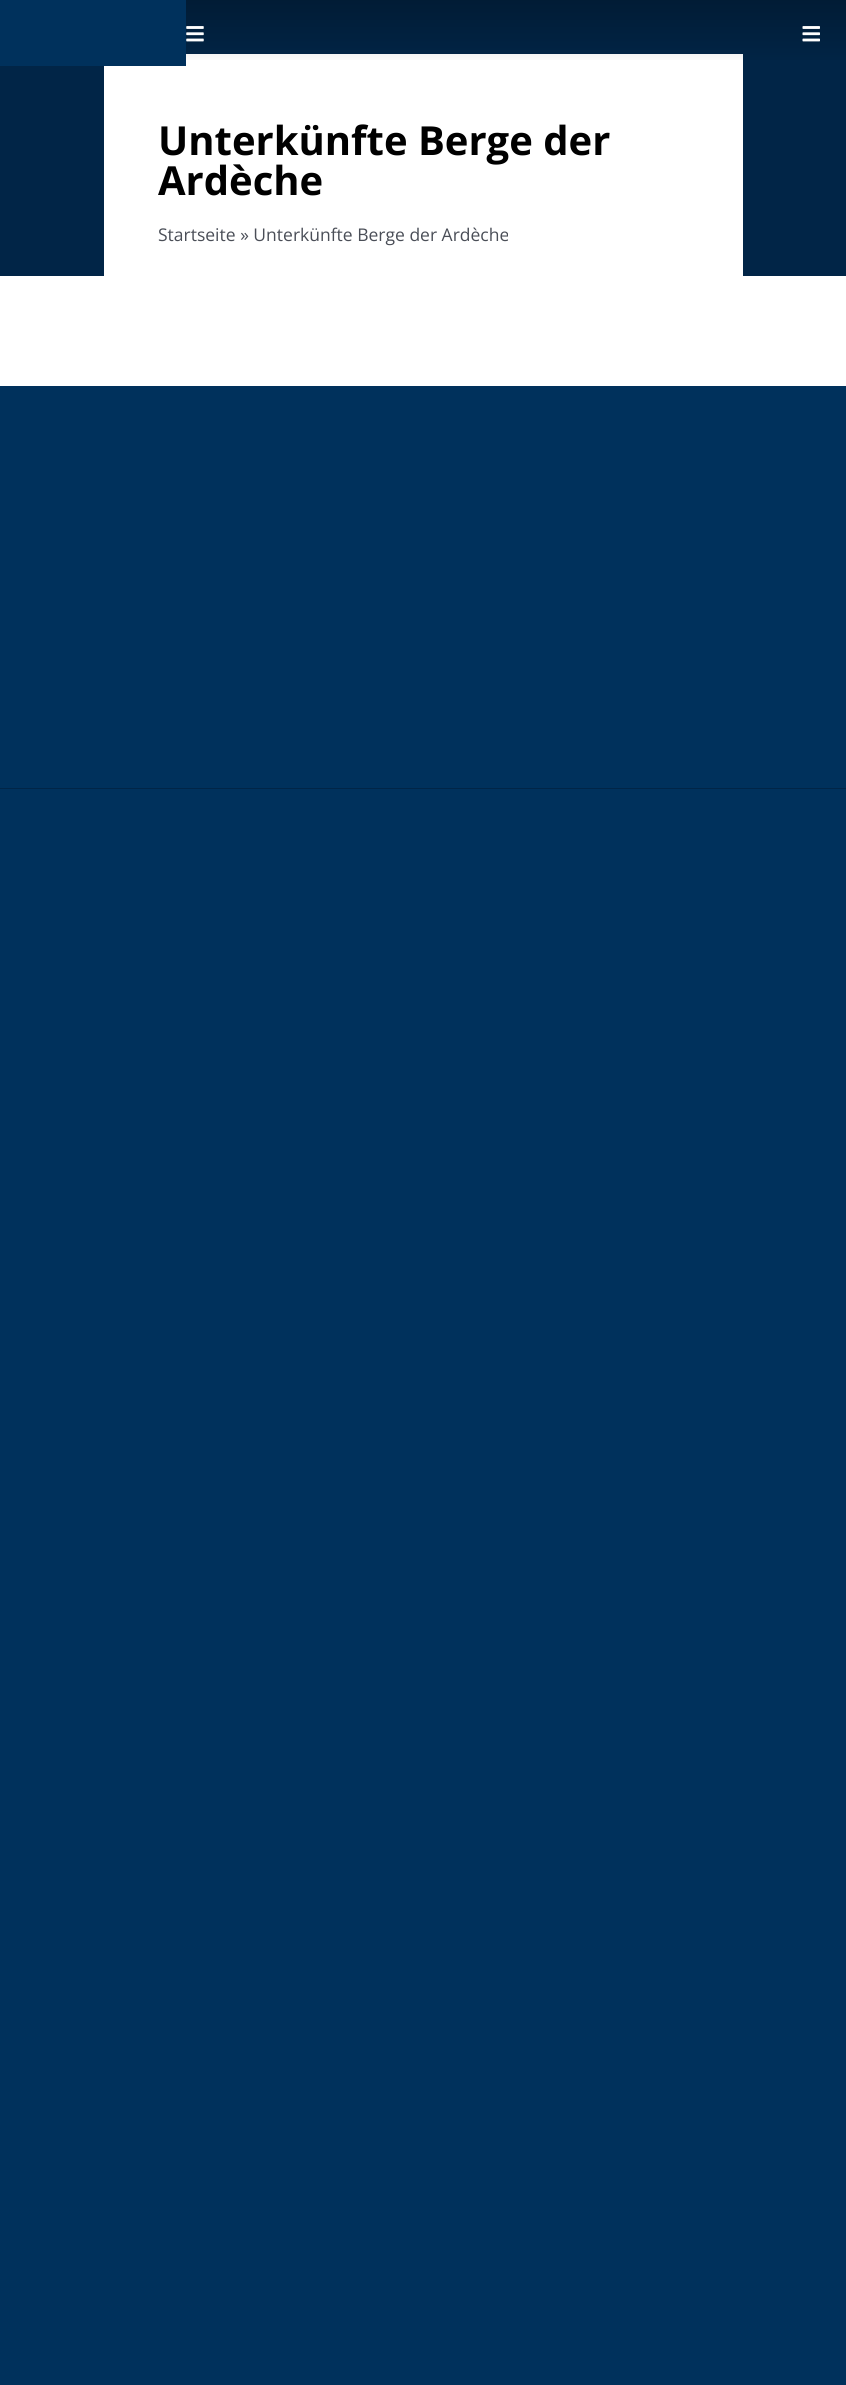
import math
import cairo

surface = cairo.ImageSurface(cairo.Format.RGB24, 846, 2385)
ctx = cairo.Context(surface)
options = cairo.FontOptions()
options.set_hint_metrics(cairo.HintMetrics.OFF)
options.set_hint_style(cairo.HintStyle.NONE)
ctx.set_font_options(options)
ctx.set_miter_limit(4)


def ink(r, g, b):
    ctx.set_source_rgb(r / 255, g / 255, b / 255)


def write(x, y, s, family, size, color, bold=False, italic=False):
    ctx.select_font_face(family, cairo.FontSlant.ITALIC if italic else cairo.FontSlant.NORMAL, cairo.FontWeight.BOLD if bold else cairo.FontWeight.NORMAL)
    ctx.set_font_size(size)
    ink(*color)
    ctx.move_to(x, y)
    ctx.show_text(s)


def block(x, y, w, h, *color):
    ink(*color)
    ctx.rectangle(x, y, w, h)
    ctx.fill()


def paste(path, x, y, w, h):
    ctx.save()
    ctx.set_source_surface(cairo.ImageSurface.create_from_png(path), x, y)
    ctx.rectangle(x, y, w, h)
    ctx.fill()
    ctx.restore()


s1 = dict(family="Open Sans", size=40, color=(0, 0, 0), bold=True)
s2 = dict(family="Open Sans", size=17.5, color=(74, 78, 87))

ink(0, 49, 92)
ctx.paint()
block(0, 0, 846, 789, 1, 37, 71)
block(104, 54, 639, 222, 255, 255, 255)
gradient = cairo.LinearGradient(423, 0, 423, 66)
gradient.add_color_stop_rgba(0, 0, 0, 0, 0.25)
gradient.add_color_stop_rgba(1, 0, 0, 0, 0)
ctx.set_source(gradient)
ctx.rectangle(186, 0, 660, 60)
ctx.fill()
block(0, 0, 186, 66, 0, 49, 92)
paste("pic1.png", 186, 26, 18, 16)
paste("pic2.png", 802, 26, 18, 16)
write(158, 155, "Unterkünfte Berge der", **s1)
write(158, 195, "Ardèche", **s1)
write(158, 241, "Startseite » Unterkünfte Berge der Ardèche", **s2)
block(0, 276, 846, 110, 255, 255, 255)
block(0, 386, 846, 402, 0, 49, 92)
surface.write_to_png("screenshot.png")
